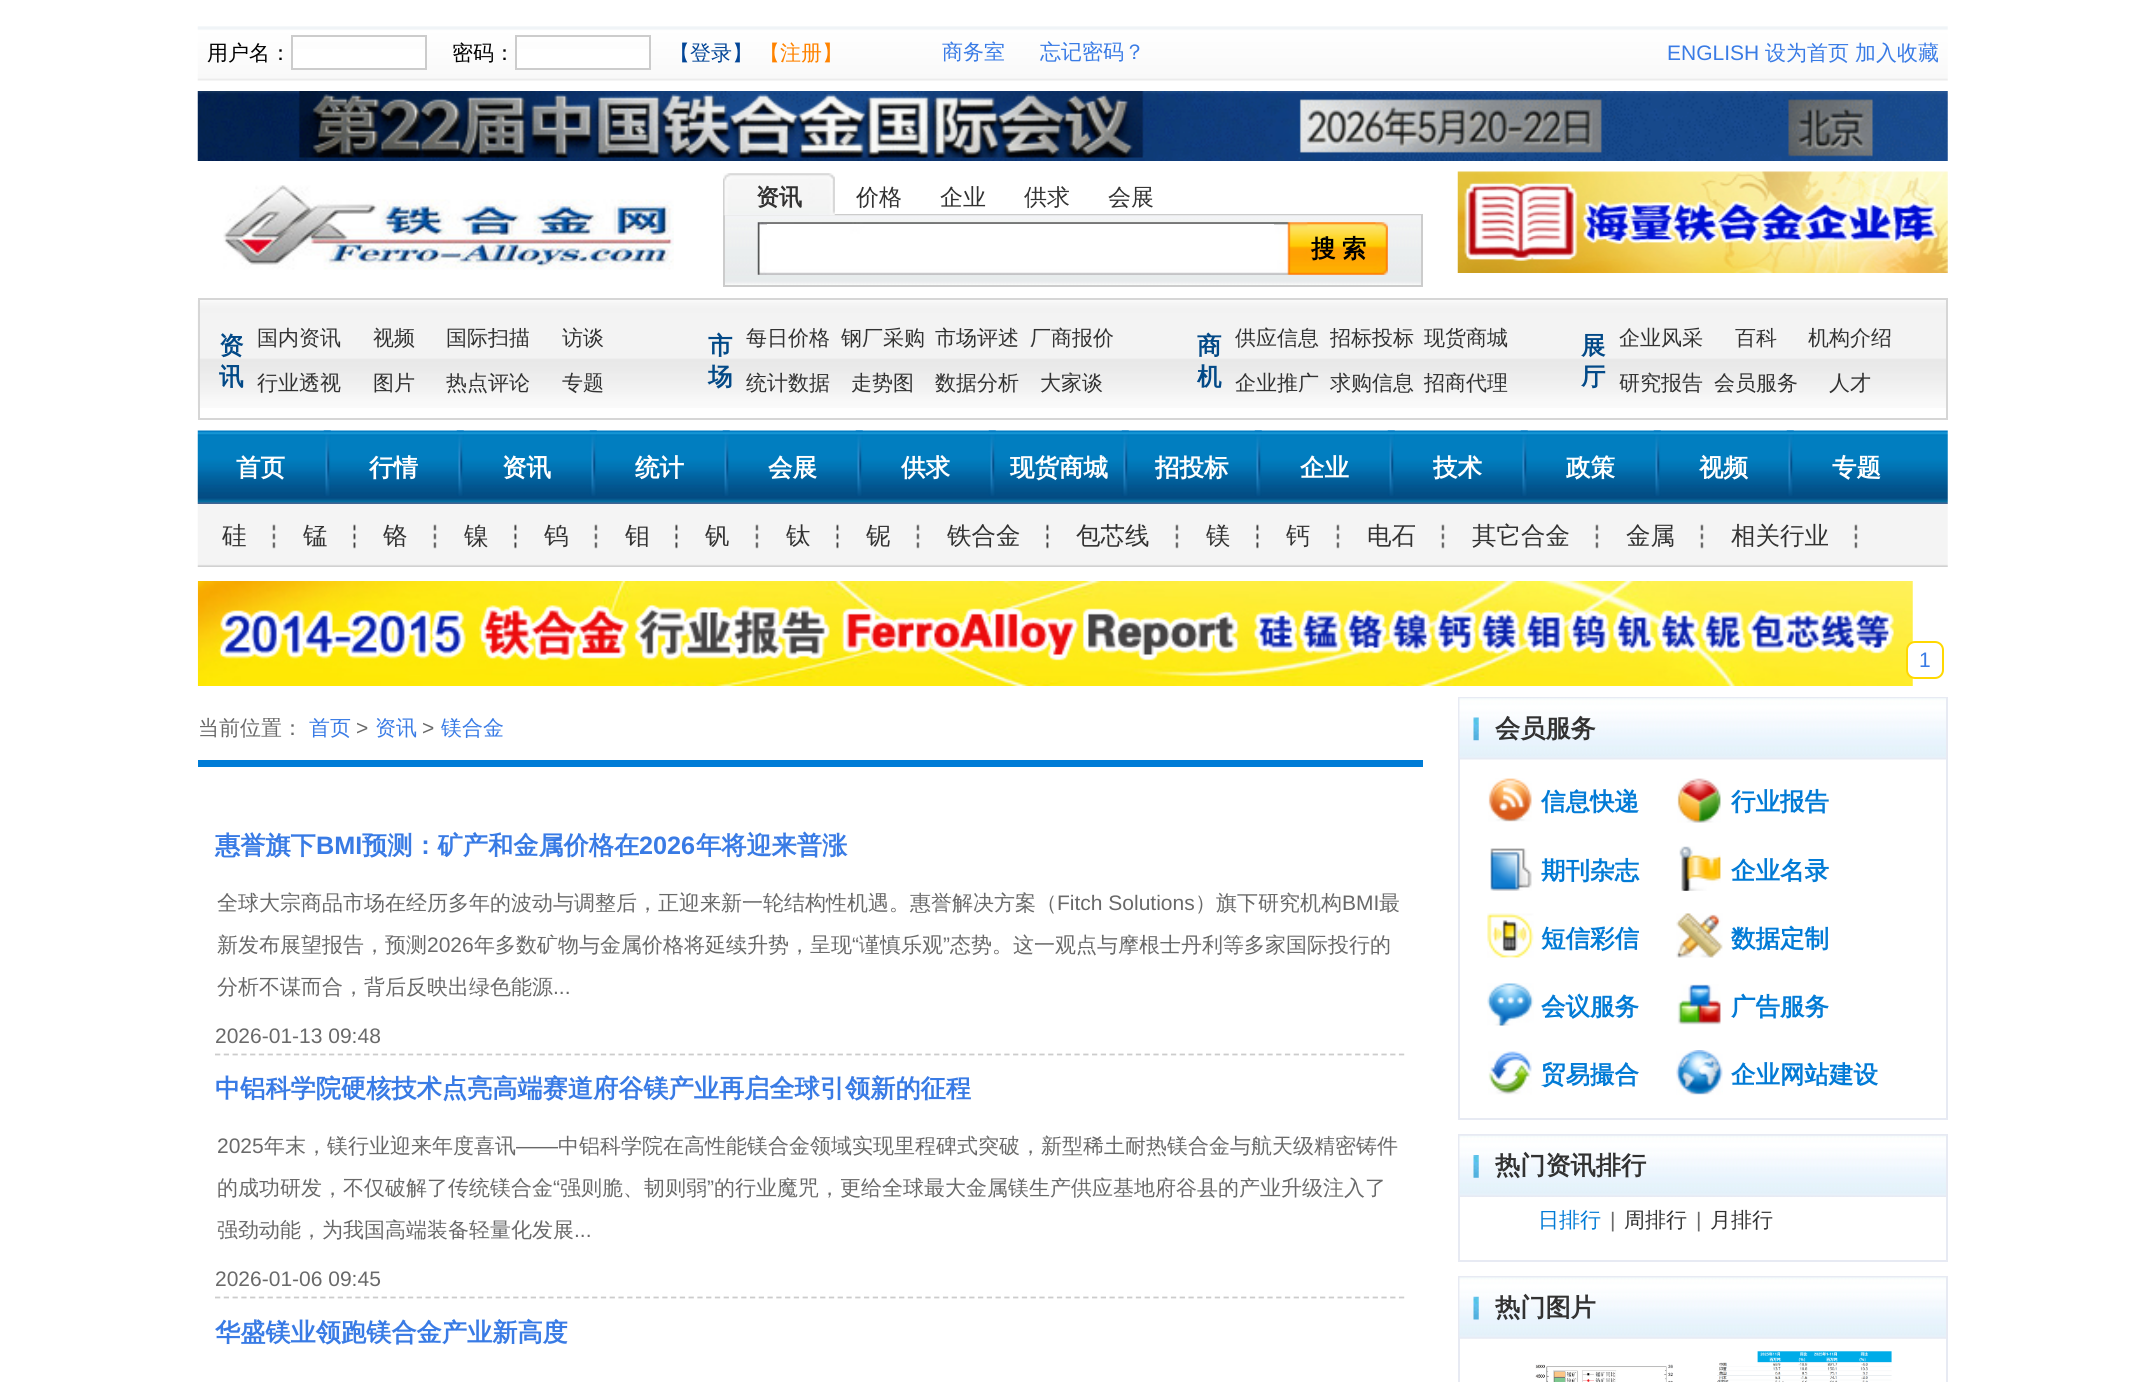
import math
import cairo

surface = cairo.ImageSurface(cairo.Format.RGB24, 2144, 1382)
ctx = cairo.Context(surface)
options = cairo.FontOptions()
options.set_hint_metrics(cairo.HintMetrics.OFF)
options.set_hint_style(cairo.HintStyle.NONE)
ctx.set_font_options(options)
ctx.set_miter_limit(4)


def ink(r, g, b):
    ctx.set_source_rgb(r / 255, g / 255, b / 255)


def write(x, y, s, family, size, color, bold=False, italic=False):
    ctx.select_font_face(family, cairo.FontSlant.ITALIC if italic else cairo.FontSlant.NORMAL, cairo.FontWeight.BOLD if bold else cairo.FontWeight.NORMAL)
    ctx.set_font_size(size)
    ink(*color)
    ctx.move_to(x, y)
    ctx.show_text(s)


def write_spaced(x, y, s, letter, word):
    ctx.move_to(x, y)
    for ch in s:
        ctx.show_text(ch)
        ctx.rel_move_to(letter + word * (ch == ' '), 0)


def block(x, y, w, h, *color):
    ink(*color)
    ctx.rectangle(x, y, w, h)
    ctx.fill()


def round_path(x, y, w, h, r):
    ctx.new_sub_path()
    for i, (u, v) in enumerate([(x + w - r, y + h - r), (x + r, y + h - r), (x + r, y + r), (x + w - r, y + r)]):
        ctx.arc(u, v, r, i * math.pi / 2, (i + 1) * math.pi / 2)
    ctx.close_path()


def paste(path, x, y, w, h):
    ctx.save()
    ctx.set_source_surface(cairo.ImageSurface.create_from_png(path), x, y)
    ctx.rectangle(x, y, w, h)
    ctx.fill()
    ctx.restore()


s1 = dict(family="WenQuanYi Zen Hei Medium", size=21, color=(0, 0, 0))
s2 = dict(family="WenQuanYi Zen Hei Medium", size=21, color=(3, 70, 151))
s3 = dict(family="WenQuanYi Zen Hei Medium", size=21, color=(255, 131, 0))
s4 = dict(family="WenQuanYi Zen Hei Medium", size=21, color=(57, 123, 229))
s5 = dict(family="Liberation Sans", size=21, color=(57, 123, 229))
s6 = dict(family="WenQuanYi Zen Hei", size=23, color=(50, 50, 50), bold=True)
s7 = dict(family="WenQuanYi Zen Hei Medium", size=23, color=(50, 50, 50))
s8 = dict(family="WenQuanYi Zen Hei", size=24.5, color=(2, 73, 135), bold=True)
s9 = dict(family="WenQuanYi Zen Hei Medium", size=21, color=(50, 50, 50))
s10 = dict(family="WenQuanYi Zen Hei", size=24.5, color=(255, 255, 255), bold=True)
s11 = dict(family="WenQuanYi Zen Hei Medium", size=24.5, color=(50, 50, 50))
s12 = dict(family="WenQuanYi Zen Hei Medium", size=21, color=(105, 105, 105))
s13 = dict(family="Liberation Sans", size=21, color=(105, 105, 105))
s14 = dict(family="WenQuanYi Zen Hei", size=25.2, color=(57, 123, 229), bold=True)
s15 = dict(family="Liberation Sans", size=25.2, color=(57, 123, 229), bold=True)
s16 = dict(family="WenQuanYi Zen Hei", size=25.2, color=(50, 50, 50), bold=True)
s17 = dict(family="WenQuanYi Zen Hei", size=24.5, color=(2, 123, 214), bold=True)
s18 = dict(family="WenQuanYi Zen Hei Medium", size=21, color=(2, 123, 214))

ink(255, 255, 255)
ctx.paint()
paste("pic1.png", 197, 26, 1751, 55)
write(207, 60, "用户名：", **s1)
block(293, 49, 132, 19, 255, 255, 255)
ctx.rectangle(292, 36, 134, 33)
ink(204, 204, 204)
ctx.stroke()
write(452, 60, "密码：", **s1)
block(517, 49, 132, 19, 255, 255, 255)
ctx.rectangle(516, 36, 134, 33)
ink(204, 204, 204)
ctx.stroke()
write(669, 60, "【登录】", **s2)
write(759, 60, "【注册】", **s3)
write(942, 59, "商务室", **s4)
write(1040, 59, "忘记密码？", **s4)
write(1667, 60, "ENGLISH", **s5)
write(1765, 60, "设为首页", **s4)
write(1855, 60, "加入收藏", **s4)
paste("pic2.png", 197, 91, 1751, 70)
paste("pic3.png", 223, 185, 451, 85)
block(723, 214, 700, 2, 204, 204, 204)
paste("pic5.png", 725, 215, 696, 70)
block(1421, 215, 2, 72, 204, 204, 204)
block(723, 285, 700, 2, 204, 204, 204)
block(723, 215, 2, 72, 204, 204, 204)
paste("pic4.png", 723, 173, 112, 43)
write(756, 205, "资讯", **s6)
write(856, 205, "价格", **s7)
write(940, 205, "企业", **s7)
write(1024, 205, "供求", **s7)
write(1108, 205, "会展", **s7)
paste("pic6.png", 757, 222, 631, 53)
block(767, 224, 507, 2, 255, 255, 255)
ctx.select_font_face("WenQuanYi Zen Hei", cairo.FontSlant.NORMAL, cairo.FontWeight.BOLD)
ctx.set_font_size(24.5)
ink(0, 0, 0)
write_spaced(1311, 257, "搜 索", 0, -1)
paste("pic7.png", 1457, 171, 491, 102)
paste("pic8.png", 197, 300, 1749, 108)
ctx.rectangle(199, 299, 1748, 120)
ink(214, 214, 214)
ctx.stroke()
write(219, 354, "资", **s8)
write(219, 385, "讯", **s8)
write(257, 345, "国内资讯", **s9)
write(373, 345, "视频", **s9)
write(446, 345, "国际扫描", **s9)
write(562, 345, "访谈", **s9)
write(257, 390, "行业透视", **s9)
write(373, 390, "图片", **s9)
write(446, 390, "热点评论", **s9)
write(562, 390, "专题", **s9)
write(708, 354, "市", **s8)
write(708, 385, "场", **s8)
write(746, 345, "每日价格", **s9)
write(841, 345, "钢厂采购", **s9)
write(935, 345, "市场评述", **s9)
write(1030, 345, "厂商报价", **s9)
write(746, 390, "统计数据", **s9)
write(851, 390, "走势图", **s9)
write(935, 390, "数据分析", **s9)
write(1040, 390, "大家谈", **s9)
write(1197, 354, "商", **s8)
write(1197, 385, "机", **s8)
write(1235, 345, "供应信息", **s9)
write(1330, 345, "招标投标", **s9)
write(1424, 345, "现货商城", **s9)
write(1235, 390, "企业推广", **s9)
write(1330, 390, "求购信息", **s9)
write(1424, 390, "招商代理", **s9)
write(1581, 354, "展", **s8)
write(1581, 385, "厅", **s8)
write(1619, 345, "企业风采", **s9)
write(1735, 345, "百科", **s9)
write(1808, 345, "机构介绍", **s9)
write(1619, 390, "研究报告", **s9)
write(1714, 390, "会员服务", **s9)
write(1829, 390, "人才", **s9)
paste("pic9.png", 197, 430, 1751, 74)
write(236, 476, "首页", **s10)
paste("pic10.png", 323, 430, 8, 66)
write(369, 476, "行情", **s10)
paste("pic10.png", 456, 430, 8, 66)
write(502, 476, "资讯", **s10)
paste("pic10.png", 589, 430, 8, 66)
write(635, 476, "统计", **s10)
paste("pic11.png", 722, 430, 8, 66)
write(768, 476, "会展", **s10)
paste("pic12.png", 855, 430, 8, 66)
write(901, 476, "供求", **s10)
paste("pic13.png", 988, 430, 8, 66)
write(1010, 476, "现货商城", **s10)
paste("pic12.png", 1121, 430, 8, 66)
write(1155, 476, "招投标", **s10)
paste("pic12.png", 1254, 430, 8, 66)
write(1300, 476, "企业", **s10)
paste("pic13.png", 1387, 430, 8, 66)
write(1433, 476, "技术", **s10)
paste("pic12.png", 1520, 430, 8, 66)
write(1566, 476, "政策", **s10)
paste("pic12.png", 1653, 430, 8, 66)
write(1699, 476, "视频", **s10)
paste("pic12.png", 1786, 430, 8, 66)
write(1832, 476, "专题", **s10)
paste("pic14.png", 197, 504, 1751, 63)
write(222, 544, "硅", **s11)
paste("pic15.png", 272, 524, 4, 25)
write(303, 544, "锰", **s11)
paste("pic16.png", 353, 524, 3, 25)
write(383, 544, "铬", **s11)
paste("pic15.png", 433, 524, 4, 25)
write(464, 544, "镍", **s11)
paste("pic17.png", 514, 524, 3, 25)
write(544, 544, "钨", **s11)
paste("pic15.png", 594, 524, 4, 25)
write(625, 544, "钼", **s11)
paste("pic17.png", 675, 524, 3, 25)
write(705, 544, "钒", **s11)
paste("pic15.png", 755, 524, 4, 25)
write(786, 544, "钛", **s11)
paste("pic16.png", 836, 524, 3, 25)
write(866, 544, "铌", **s11)
paste("pic15.png", 916, 524, 4, 25)
write(947, 544, "铁合金", **s11)
paste("pic17.png", 1046, 524, 3, 25)
write(1076, 544, "包芯线", **s11)
paste("pic15.png", 1175, 524, 4, 25)
write(1206, 544, "镁", **s11)
paste("pic17.png", 1256, 524, 3, 25)
write(1286, 544, "钙", **s11)
paste("pic15.png", 1336, 524, 4, 25)
write(1367, 544, "电石", **s11)
paste("pic15.png", 1441, 524, 4, 25)
write(1472, 544, "其它合金", **s11)
paste("pic15.png", 1595, 524, 4, 25)
write(1626, 544, "金属", **s11)
paste("pic15.png", 1700, 524, 4, 25)
write(1731, 544, "相关行业", **s11)
paste("pic15.png", 1854, 524, 4, 25)
paste("pic18.png", 197, 581, 1716, 105)
ink(255, 255, 255)
round_path(1907, 642, 36, 36, 8)
ctx.fill_preserve()
ink(255, 216, 0)
ctx.stroke()
write(1919, 667, "1", **s5)
block(198, 760, 1225, 7, 0, 124, 214)
write(198, 735, "当前位置：", **s12)
write(309, 735, "首页", **s4)
write(356, 735, ">", **s13)
write(375, 735, "资讯", **s4)
write(422, 735, ">", **s13)
write(441, 735, "镁合金", **s4)
ctx.new_path()
ctx.move_to(215, 1054.5)
ctx.line_to(1405, 1054.5)
ink(204, 204, 204)
ctx.set_line_width(1.8)
ctx.set_dash([5.25, 3.52])
ctx.stroke()
write(215, 854, "惠誉旗下", **s14)
write(316, 854, "BMI", **s15)
write(362, 854, "预测：矿产和金属价格在", **s14)
write(639, 854, "2026", **s15)
write(696, 854, "年将迎来普涨", **s14)
write(217, 910, "全球大宗商品市场在经历多年的波动与调整后，正迎来新一轮结构性机遇。惠誉解决方案（", **s12)
write(1057, 910, "Fitch Solutions", **s13)
write(1195, 910, "）旗下研究机构", **s12)
write(1342, 910, "BMI", **s13)
write(1379, 910, "最", **s12)
write(217, 952, "新发布展望报告，预测", **s12)
write(427, 952, "2026", **s13)
write(474, 952, "年多数矿物与金属价格将延续升势，呈现", **s12)
write(852, 952, "“", **s13)
write(859, 952, "谨慎乐观", **s12)
write(943, 952, "”", **s13)
write(950, 952, "态势。这一观点与摩根士丹利等多家国际投行的", **s12)
write(217, 994, "分析不谋而合，背后反映出绿色能源", **s12)
write(553, 994, "...", **s13)
write(215, 1043, "2026-01-13 09:48", **s13)
ctx.new_path()
ctx.move_to(215, 1297.5)
ctx.line_to(1405, 1297.5)
ink(204, 204, 204)
ctx.stroke()
write(215, 1097, "中铝科学院硬核技术点亮高端赛道府谷镁产业再启全球引领新的征程", **s14)
write(217, 1153, "2025", **s13)
write(264, 1153, "年末，镁行业迎来年度喜讯", **s12)
write(516, 1153, "——", **s13)
write(558, 1153, "中铝科学院在高性能镁合金领域实现里程碑式突破，新型稀土耐热镁合金与航天级精密铸件", **s12)
write(217, 1195, "的成功研发，不仅破解了传统镁合金", **s12)
write(553, 1195, "“", **s13)
write(560, 1195, "强则脆、韧则弱", **s12)
write(707, 1195, "”", **s13)
write(714, 1195, "的行业魔咒，更给全球最大金属镁生产供应基地府谷县的产业升级注入了", **s12)
write(217, 1237, "强劲动能，为我国高端装备轻量化发展", **s12)
write(574, 1237, "...", **s13)
write(215, 1286, "2026-01-06 09:45", **s13)
write(215, 1341, "华盛镁业领跑镁合金产业新高度", **s14)
ctx.rectangle(1459, 698, 488, 421)
ink(231, 234, 243)
ctx.set_line_width(2)
ctx.set_dash([])
ctx.stroke()
paste("pic19.png", 1459, 698, 487, 62)
paste("pic20.png", 1473, 717, 6, 24)
write(1495, 737, "会员服务", **s16)
paste("pic21.png", 1488, 778, 44, 44)
write(1541, 810, "信息快递", **s17)
paste("pic22.png", 1677, 778, 44, 45)
write(1731, 810, "行业报告", **s17)
paste("pic23.png", 1490, 848, 42, 43)
write(1541, 879, "期刊杂志", **s17)
paste("pic24.png", 1679, 846, 42, 45)
write(1731, 879, "企业名录", **s17)
paste("pic25.png", 1487, 913, 47, 45)
write(1541, 947, "短信彩信", **s17)
paste("pic26.png", 1676, 913, 47, 45)
write(1731, 947, "数据定制", **s17)
paste("pic27.png", 1487, 983, 47, 43)
write(1541, 1015, "会议服务", **s17)
paste("pic28.png", 1677, 984, 44, 41)
write(1731, 1015, "广告服务", **s17)
paste("pic29.png", 1488, 1051, 44, 44)
write(1541, 1083, "贸易撮合", **s17)
paste("pic30.png", 1676, 1050, 47, 45)
write(1731, 1083, "企业网站建设", **s17)
ctx.rectangle(1459, 1135, 488, 126)
ink(231, 234, 243)
ctx.stroke()
paste("pic31.png", 1459, 1135, 487, 62)
paste("pic32.png", 1473, 1155, 6, 23)
write(1495, 1174, "热门资讯排行", **s16)
write(1538, 1227, "日排行", **s18)
write(1610, 1227, "|", **s13)
write(1624, 1227, "周排行", **s9)
write(1696, 1227, "|", **s13)
write(1710, 1227, "月排行", **s9)
ctx.rectangle(1459, 1277, 488, 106)
ink(231, 234, 243)
ctx.stroke()
paste("pic33.png", 1459, 1277, 487, 62)
paste("pic34.png", 1473, 1296, 6, 24)
write(1495, 1316, "热门图片", **s16)
paste("pic35.png", 1535, 1364, 138, 18)
paste("pic36.png", 1717, 1351, 175, 31)
surface.write_to_png("screenshot.png")
